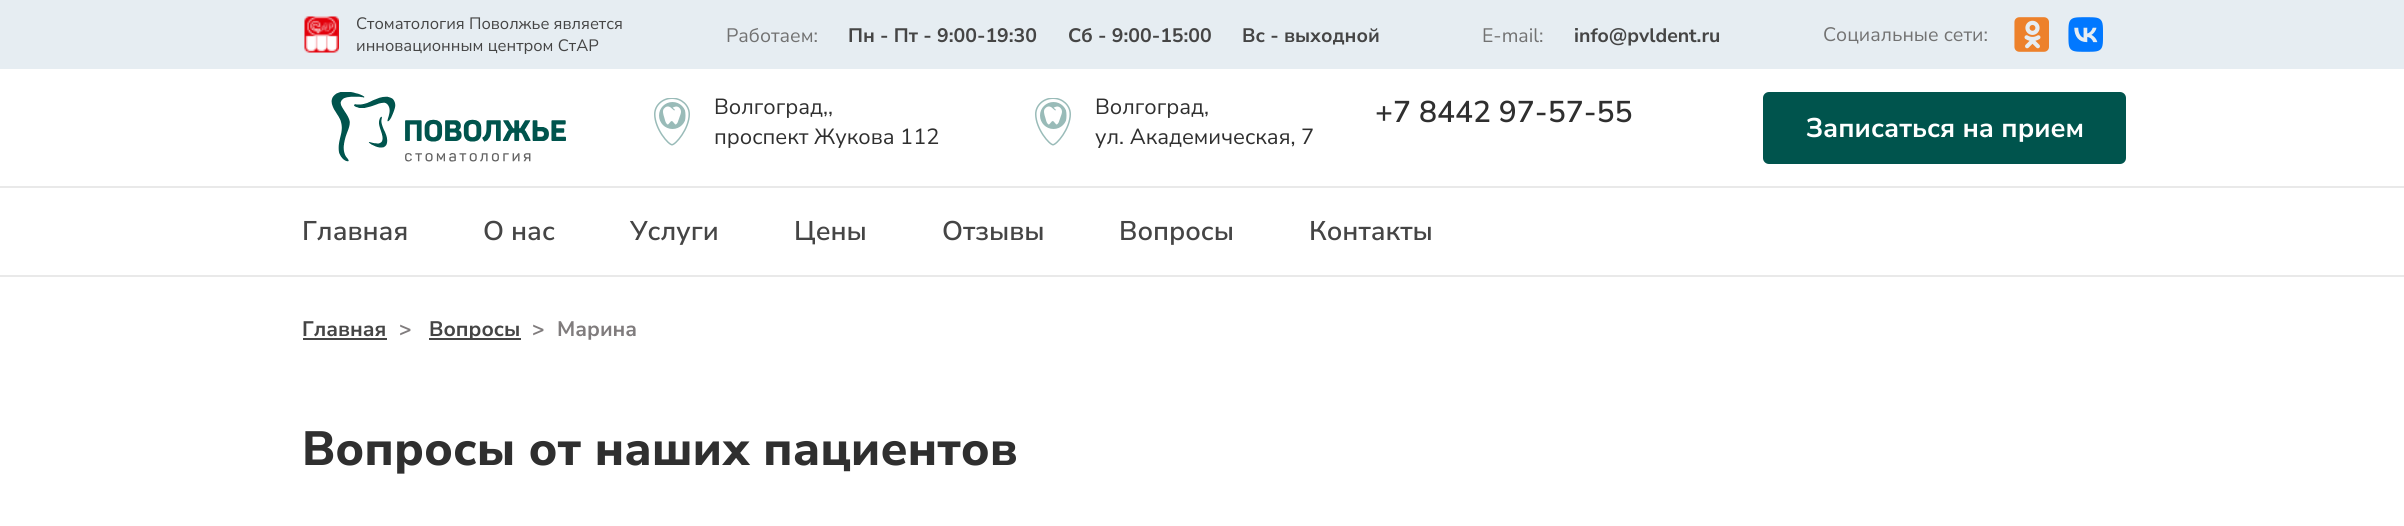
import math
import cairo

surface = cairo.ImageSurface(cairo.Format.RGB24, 2404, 526)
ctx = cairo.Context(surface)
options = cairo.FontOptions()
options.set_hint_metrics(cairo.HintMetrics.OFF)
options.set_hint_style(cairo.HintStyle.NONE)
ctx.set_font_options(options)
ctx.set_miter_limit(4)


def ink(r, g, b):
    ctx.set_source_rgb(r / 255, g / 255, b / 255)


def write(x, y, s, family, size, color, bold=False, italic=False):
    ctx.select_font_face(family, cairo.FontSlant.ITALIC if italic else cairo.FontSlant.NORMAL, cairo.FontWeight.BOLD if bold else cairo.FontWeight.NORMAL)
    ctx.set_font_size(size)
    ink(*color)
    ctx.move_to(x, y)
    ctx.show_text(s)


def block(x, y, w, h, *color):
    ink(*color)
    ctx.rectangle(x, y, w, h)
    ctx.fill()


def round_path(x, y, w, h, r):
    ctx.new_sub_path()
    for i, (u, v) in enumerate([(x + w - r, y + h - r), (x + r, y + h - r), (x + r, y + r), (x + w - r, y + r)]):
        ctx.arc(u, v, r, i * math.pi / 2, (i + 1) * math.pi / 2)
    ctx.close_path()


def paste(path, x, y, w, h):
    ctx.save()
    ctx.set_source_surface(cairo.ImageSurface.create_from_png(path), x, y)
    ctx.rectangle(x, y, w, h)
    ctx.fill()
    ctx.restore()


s1 = dict(family="Nunito Sans", size=16.5, color=(69, 69, 69))
s2 = dict(family="Nunito Sans", size=19.5, color=(114, 114, 114))
s3 = dict(family="Nunito Sans", size=19.5, color=(69, 69, 69), bold=True)
s4 = dict(family="Nunito Sans", size=21.9, color=(47, 47, 47))
s5 = dict(family="Nunito Sans SemiBold", size=30, color=(47, 47, 47))
s6 = dict(family="Nunito Sans", size=27, color=(255, 255, 255), bold=True)
s7 = dict(family="Nunito Sans SemiBold", size=27, color=(69, 69, 69))
s8 = dict(family="Nunito Sans", size=21, color=(69, 69, 69), bold=True)
s9 = dict(family="Nunito Sans", size=21, color=(128, 124, 125), bold=True)
s10 = dict(family="Nunito Sans ExtraBold", size=48, color=(47, 47, 47))

ink(255, 255, 255)
ctx.paint()
block(0, 0, 2404, 69, 230, 237, 242)
paste("pic1.png", 304, 16, 35, 37)
write(356, 29, "Стоматология Поволжье является", **s1)
write(356, 51, "инновационным центром СтАР", **s1)
write(726, 42, "Работаем:", **s2)
write(848, 42, "Пн - Пт - 9:00-19:30", **s3)
write(1068, 42, "Сб - 9:00-15:00", **s3)
write(1242, 42, "Вс - выходной", **s3)
write(1482, 42, "E-mail:", **s2)
write(1574, 42, "info@pvldent.ru", **s3)
write(1823, 41, "Социальные сети:", **s2)
paste("pic2.png", 2014, 17, 35, 35)
paste("pic3.png", 2068, 17, 35, 35)
block(0, 186, 2404, 2, 233, 233, 233)
paste("pic4.png", 331, 92, 235, 70)
paste("pic5.png", 654, 98, 36, 48)
write(714, 114, "Волгоград,,", **s4)
write(714, 144, "проспект Жукова 112", **s4)
paste("pic5.png", 1035, 98, 36, 48)
write(1095, 114, "Волгоград,", **s4)
write(1095, 144, "ул. Академическая, 7", **s4)
write(1375, 122, "+7 8442 97-57-55", **s5)
ink(0, 84, 77)
round_path(1763, 92, 363, 72, 6)
ctx.fill()
write(1806, 137, "Записаться на прием", **s6)
block(0, 275, 2404, 2, 233, 233, 233)
write(302, 240, "Главная", **s7)
write(483, 240, "О нас", **s7)
write(630, 240, "Услуги", **s7)
write(794, 240, "Цены", **s7)
write(942, 240, "Отзывы", **s7)
write(1119, 240, "Вопросы", **s7)
write(1309, 240, "Контакты", **s7)
write(302, 336, "Главная", **s8)
block(303, 338, 84, 2, 69, 69, 69)
write(399, 336, ">", **s9)
block(429, 338, 92, 2, 69, 69, 69)
write(429, 336, "Вопросы", **s8)
write(532, 336, ">", **s9)
write(557, 336, "Марина", **s9)
write(302, 465, "Вопросы от наших пациентов", **s10)
surface.write_to_png("screenshot.png")
